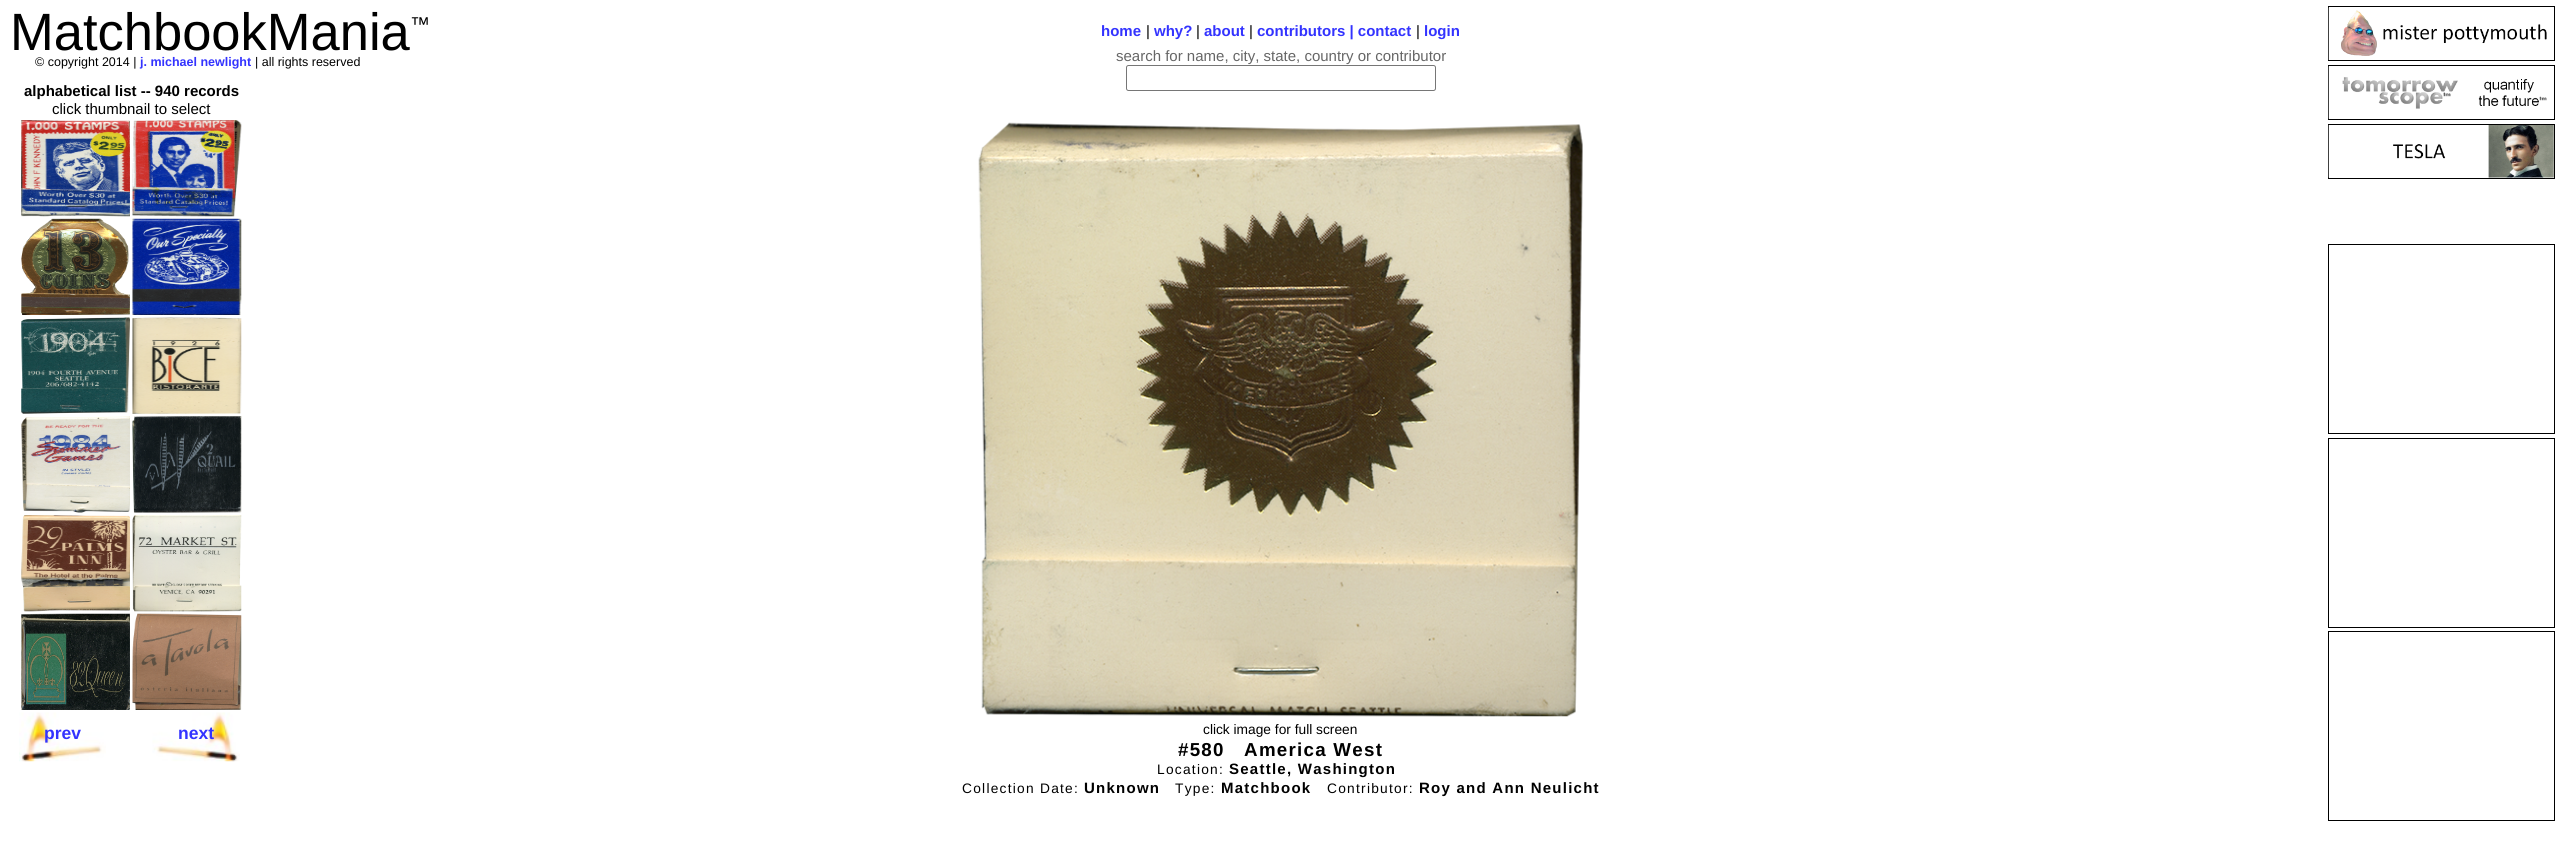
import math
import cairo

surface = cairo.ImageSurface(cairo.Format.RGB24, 2561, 860)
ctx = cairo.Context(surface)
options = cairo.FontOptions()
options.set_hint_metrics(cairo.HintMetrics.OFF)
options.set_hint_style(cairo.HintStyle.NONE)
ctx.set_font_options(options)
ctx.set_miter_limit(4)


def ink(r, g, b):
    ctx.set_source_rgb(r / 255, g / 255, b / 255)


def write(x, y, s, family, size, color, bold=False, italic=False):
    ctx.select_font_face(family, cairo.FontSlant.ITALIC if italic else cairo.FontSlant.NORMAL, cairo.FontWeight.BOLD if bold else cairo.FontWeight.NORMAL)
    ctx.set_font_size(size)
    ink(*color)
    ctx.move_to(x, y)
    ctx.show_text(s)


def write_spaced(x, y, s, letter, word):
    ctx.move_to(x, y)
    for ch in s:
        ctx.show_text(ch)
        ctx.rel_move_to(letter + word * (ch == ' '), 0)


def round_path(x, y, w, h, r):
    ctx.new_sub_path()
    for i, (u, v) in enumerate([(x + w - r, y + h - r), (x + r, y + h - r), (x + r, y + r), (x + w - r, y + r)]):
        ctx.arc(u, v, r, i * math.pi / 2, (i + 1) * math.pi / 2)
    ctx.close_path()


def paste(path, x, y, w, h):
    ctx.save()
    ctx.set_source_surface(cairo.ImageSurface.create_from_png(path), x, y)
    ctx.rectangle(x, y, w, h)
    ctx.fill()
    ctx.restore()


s1 = dict(family="Liberation Sans", size=52.5, color=(0, 0, 0))
s2 = dict(family="Liberation Sans", size=20, color=(0, 0, 0))
s3 = dict(family="Liberation Sans", size=15, color=(51, 51, 255), bold=True)
s4 = dict(family="Liberation Sans", size=15, color=(0, 0, 0))
s5 = dict(family="Liberation Sans", size=12.5, color=(0, 0, 0))
s6 = dict(family="Liberation Sans", size=12.5, color=(51, 51, 255), bold=True)
s7 = dict(family="Liberation Sans", size=15, color=(102, 102, 102))
s8 = dict(family="Liberation Sans", size=15, color=(0, 0, 0), bold=True)
s9 = dict(family="Liberation Sans", size=17.5, color=(51, 51, 255), bold=True)
s10 = dict(family="Liberation Sans", size=13.75, color=(0, 0, 0))

ink(255, 255, 255)
ctx.paint()
write(10, 50, "MatchbookMania", **s1)
write(410, 31, "™", **s2)
write(1101, 36, "home", **s3)
write(1146, 36, "|", **s4)
write(1154, 36, "why?", **s3)
write(1196, 36, "|", **s4)
write(1204, 36, "about", **s3)
write(1249, 36, "|", **s4)
write(1257, 36, "contributors | contact", **s3)
write(1416, 36, "|", **s4)
write(1424, 36, "login", **s3)
write(35, 66, "© copyright 2014 |", **s5)
write(140, 66, "j. michael newlight", **s6)
write(255, 66, "| all rights reserved", **s5)
ctx.rectangle(2328.5, 6.5, 226, 54)
ctx.set_line_width(1)
ctx.stroke()
paste("pic1.png", 2328, 7, 219, 53)
ctx.rectangle(2328.5, 65.5, 226, 54)
ctx.stroke()
paste("pic2.png", 2328, 66, 219, 53)
ctx.rectangle(2328.5, 124.5, 226, 54)
ctx.stroke()
paste("pic3.png", 2328, 125, 226, 53)
write(1116, 61, "search for name, city, state, country or contributor", **s7)
round_path(1126.5, 65.5, 309, 25, 2)
ink(118, 118, 118)
ctx.stroke()
write(24, 96, "alphabetical list -- 940 records", **s8)
write(52, 114, "click thumbnail to select", **s4)
paste("pic4.png", 21, 120, 109, 97)
paste("pic5.png", 132, 120, 110, 97)
paste("pic6.png", 21, 218, 109, 97)
paste("pic7.png", 132, 218, 110, 97)
paste("pic8.png", 21, 317, 109, 97)
paste("pic9.png", 132, 317, 110, 97)
paste("pic10.png", 21, 416, 109, 97)
paste("pic11.png", 132, 416, 110, 97)
paste("pic12.png", 21, 515, 109, 97)
paste("pic13.png", 132, 515, 110, 97)
paste("pic14.png", 21, 613, 109, 97)
paste("pic15.png", 132, 613, 110, 97)
paste("pic16.png", 19, 712, 87, 50)
write(44, 739, "prev", **s9)
paste("pic17.png", 152, 712, 88, 50)
write(178, 739, "next", **s9)
paste("pic18.png", 978, 122, 605, 595)
write(1203, 734, "click image for full screen", **s10)
ctx.select_font_face("Liberation Sans", cairo.FontSlant.NORMAL, cairo.FontWeight.BOLD)
ctx.set_font_size(18.75)
write_spaced(1178, 756, "#580   America West", 1.25, 0)
ctx.select_font_face("Liberation Sans")
ctx.set_font_size(13.75)
write_spaced(1157, 774, "Location:", 1.25, 0)
ctx.select_font_face("Liberation Sans", cairo.FontSlant.NORMAL, cairo.FontWeight.BOLD)
ctx.set_font_size(15)
write_spaced(1229, 774, "Seattle, Washington", 1.25, 0)
ctx.select_font_face("Liberation Sans")
ctx.set_font_size(13.75)
write_spaced(962, 793, "Collection Date:", 1.25, 0)
ctx.select_font_face("Liberation Sans", cairo.FontSlant.NORMAL, cairo.FontWeight.BOLD)
ctx.set_font_size(15)
write_spaced(1084, 793, "Unknown", 1.25, 0)
ctx.select_font_face("Liberation Sans")
ctx.set_font_size(13.75)
write_spaced(1175, 793, "Type:", 1.25, 0)
ctx.select_font_face("Liberation Sans", cairo.FontSlant.NORMAL, cairo.FontWeight.BOLD)
ctx.set_font_size(15)
write_spaced(1221, 793, "Matchbook", 1.25, 0)
ctx.select_font_face("Liberation Sans")
ctx.set_font_size(13.75)
write_spaced(1327, 793, "Contributor:", 1.25, 0)
ctx.select_font_face("Liberation Sans", cairo.FontSlant.NORMAL, cairo.FontWeight.BOLD)
ctx.set_font_size(15)
write_spaced(1419, 793, "Roy and Ann Neulicht", 1.25, 0)
ctx.rectangle(2328.5, 244.5, 226, 189)
ctx.stroke()
ctx.rectangle(2328.5, 438.5, 226, 189)
ctx.stroke()
ctx.rectangle(2328.5, 631.5, 226, 189)
ctx.stroke()
surface.write_to_png("screenshot.png")
